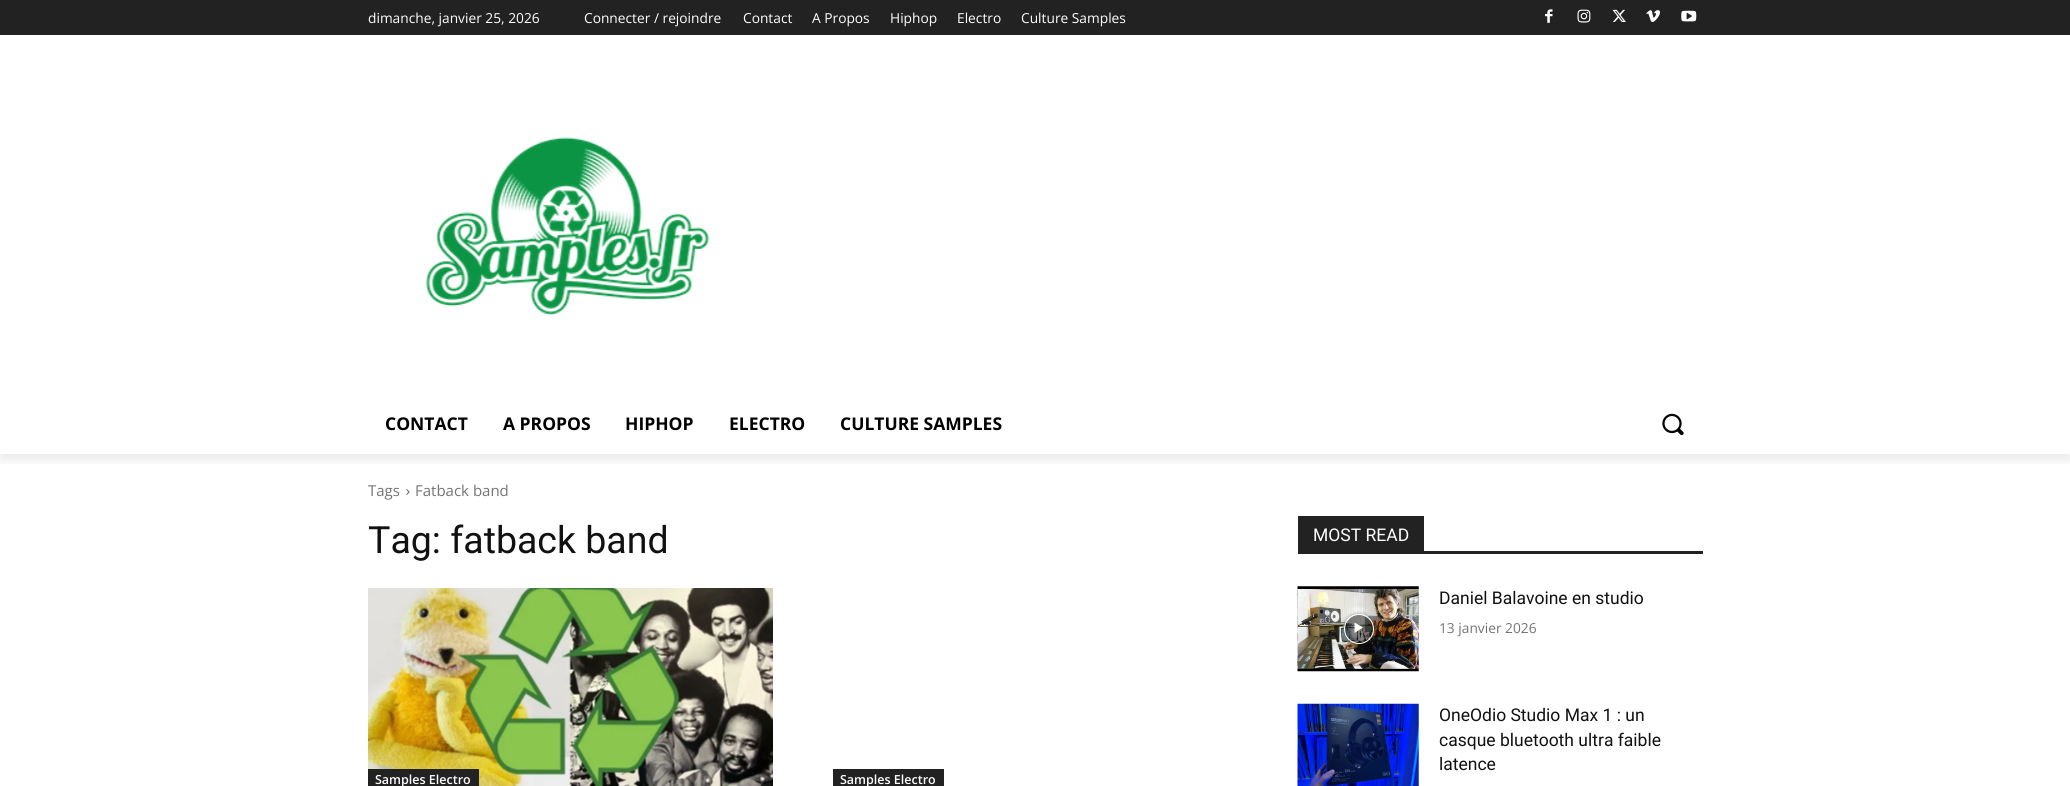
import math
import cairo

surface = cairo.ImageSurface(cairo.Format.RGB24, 2070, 786)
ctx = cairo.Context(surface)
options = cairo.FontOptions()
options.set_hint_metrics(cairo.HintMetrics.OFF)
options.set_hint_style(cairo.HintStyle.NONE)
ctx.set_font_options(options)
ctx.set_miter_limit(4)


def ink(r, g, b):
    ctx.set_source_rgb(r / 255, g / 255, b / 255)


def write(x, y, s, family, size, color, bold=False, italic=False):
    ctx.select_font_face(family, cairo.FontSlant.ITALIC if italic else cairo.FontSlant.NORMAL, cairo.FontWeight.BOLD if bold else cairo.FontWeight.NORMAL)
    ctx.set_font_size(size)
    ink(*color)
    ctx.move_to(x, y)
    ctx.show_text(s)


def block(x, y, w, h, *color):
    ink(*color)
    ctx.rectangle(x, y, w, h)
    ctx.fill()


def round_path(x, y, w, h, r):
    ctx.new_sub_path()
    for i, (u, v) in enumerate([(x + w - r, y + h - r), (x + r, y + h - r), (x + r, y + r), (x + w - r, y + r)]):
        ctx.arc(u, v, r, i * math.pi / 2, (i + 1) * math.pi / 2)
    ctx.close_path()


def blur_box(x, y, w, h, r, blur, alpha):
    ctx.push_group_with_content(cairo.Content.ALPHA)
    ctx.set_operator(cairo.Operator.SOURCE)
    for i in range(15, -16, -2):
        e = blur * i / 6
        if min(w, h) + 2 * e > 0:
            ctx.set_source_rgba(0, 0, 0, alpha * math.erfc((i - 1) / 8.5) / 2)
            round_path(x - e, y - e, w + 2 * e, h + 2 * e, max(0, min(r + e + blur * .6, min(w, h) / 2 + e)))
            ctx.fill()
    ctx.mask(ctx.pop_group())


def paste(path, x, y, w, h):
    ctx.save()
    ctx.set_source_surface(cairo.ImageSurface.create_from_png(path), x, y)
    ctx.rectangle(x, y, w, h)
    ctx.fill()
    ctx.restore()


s1 = dict(family="Open Sans", size=13.75, color=(255, 255, 255))
s2 = dict(family="Open Sans", size=17.5, color=(0, 0, 0), bold=True)
s3 = dict(family="Open Sans", size=15, color=(116, 116, 116))
s4 = dict(family="Roboto", size=37.5, color=(17, 17, 17))
s5 = dict(family="Open Sans SemiBold", size=12.5, color=(255, 255, 255))
s6 = dict(family="Roboto", size=17.5, color=(255, 255, 255))
s7 = dict(family="Roboto", size=17.5, color=(17, 17, 17))
s8 = dict(family="Open Sans", size=13.75, color=(116, 116, 116))

ink(255, 255, 255)
ctx.paint()
block(0, 0, 2070, 35, 34, 34, 34)
paste("pic1.png", 1545, 9, 8, 14)
paste("pic2.png", 1577, 9, 14, 14)
paste("pic3.png", 1612, 9, 14, 13)
paste("pic4.png", 1646, 10, 14, 13)
paste("pic5.png", 1681, 10, 16, 12)
paste("pic6.png", 425, 137, 285, 179)
ctx.save()
ctx.rectangle(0, 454, 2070, 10)
ctx.clip()
ink(0, 0, 0)
blur_box(0, 8, 2070, 453, 0, 5, 0.08)
ctx.restore()
write(368, 23, "dimanche, janvier 25, 2026", **s1)
write(584, 23, "Connecter / rejoindre", **s1)
write(743, 23, "Contact", **s1)
write(812, 23, "A Propos", **s1)
write(890, 23, "Hiphop", **s1)
write(957, 23, "Electro", **s1)
write(1021, 23, "Culture Samples", **s1)
write(385, 430, "CONTACT", **s2)
write(503, 430, "A PROPOS", **s2)
write(625, 430, "HIPHOP", **s2)
write(729, 430, "ELECTRO", **s2)
write(840, 430, "CULTURE SAMPLES", **s2)
paste("pic7.png", 1662, 413, 22, 23)
write(368, 496, "Tags", **s3)
paste("pic8.png", 406, 489, 4, 6)
write(415, 496, "Fatback band", **s3)
write(368, 553, "Tag: fatback band", **s4)
paste("pic9.png", 368, 588, 405, 198)
block(368, 769, 111, 17, 34, 34, 34)
write(375, 784, "Samples Electro", **s5)
block(833, 769, 111, 17, 34, 34, 34)
write(840, 784, "Samples Electro", **s5)
block(1298, 551, 405, 3, 34, 34, 34)
block(1298, 516, 126, 35, 34, 34, 34)
write(1313, 541, "MOST READ", **s6)
paste("pic10.png", 1297, 586, 122, 86)
ctx.save()
ctx.set_fill_rule(cairo.FillRule.EVEN_ODD)
ctx.new_path()
ctx.move_to(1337, 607)
ctx.line_to(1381, 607)
ctx.line_to(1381, 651)
ctx.line_to(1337, 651)
ctx.close_path()
ctx.move_to(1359, 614)
ctx.curve_to(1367.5, 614, 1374, 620.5, 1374, 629)
ctx.curve_to(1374, 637.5, 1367.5, 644, 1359, 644)
ctx.curve_to(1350.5, 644, 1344, 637.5, 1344, 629)
ctx.curve_to(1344, 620.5, 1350.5, 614, 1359, 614)
ctx.close_path()
ctx.clip()
ink(0, 0, 0)
blur_box(1344, 614, 30, 30, 15, 2, 0.4)
ctx.restore()
ctx.set_source_rgba(0, 0, 0, 0.48)
ctx.arc(1359, 629, 14.5, 0, 2 * math.pi)
ctx.fill_preserve()
ink(255, 255, 255)
ctx.set_line_width(1)
ctx.stroke()
ctx.new_path()
ctx.move_to(1354.5, 622.5)
ctx.line_to(1354.5, 633)
ctx.line_to(1363, 627.5)
ctx.close_path()
ctx.fill()
write(1439, 604, "Daniel Balavoine en studio", **s7)
write(1439, 633, "13 janvier 2026", **s8)
paste("pic11.png", 1297, 703, 122, 83)
write(1439, 721, "OneOdio Studio Max 1 : un", **s7)
write(1439, 746, "casque bluetooth ultra faible", **s7)
write(1439, 770, "latence", **s7)
surface.write_to_png("screenshot.png")
